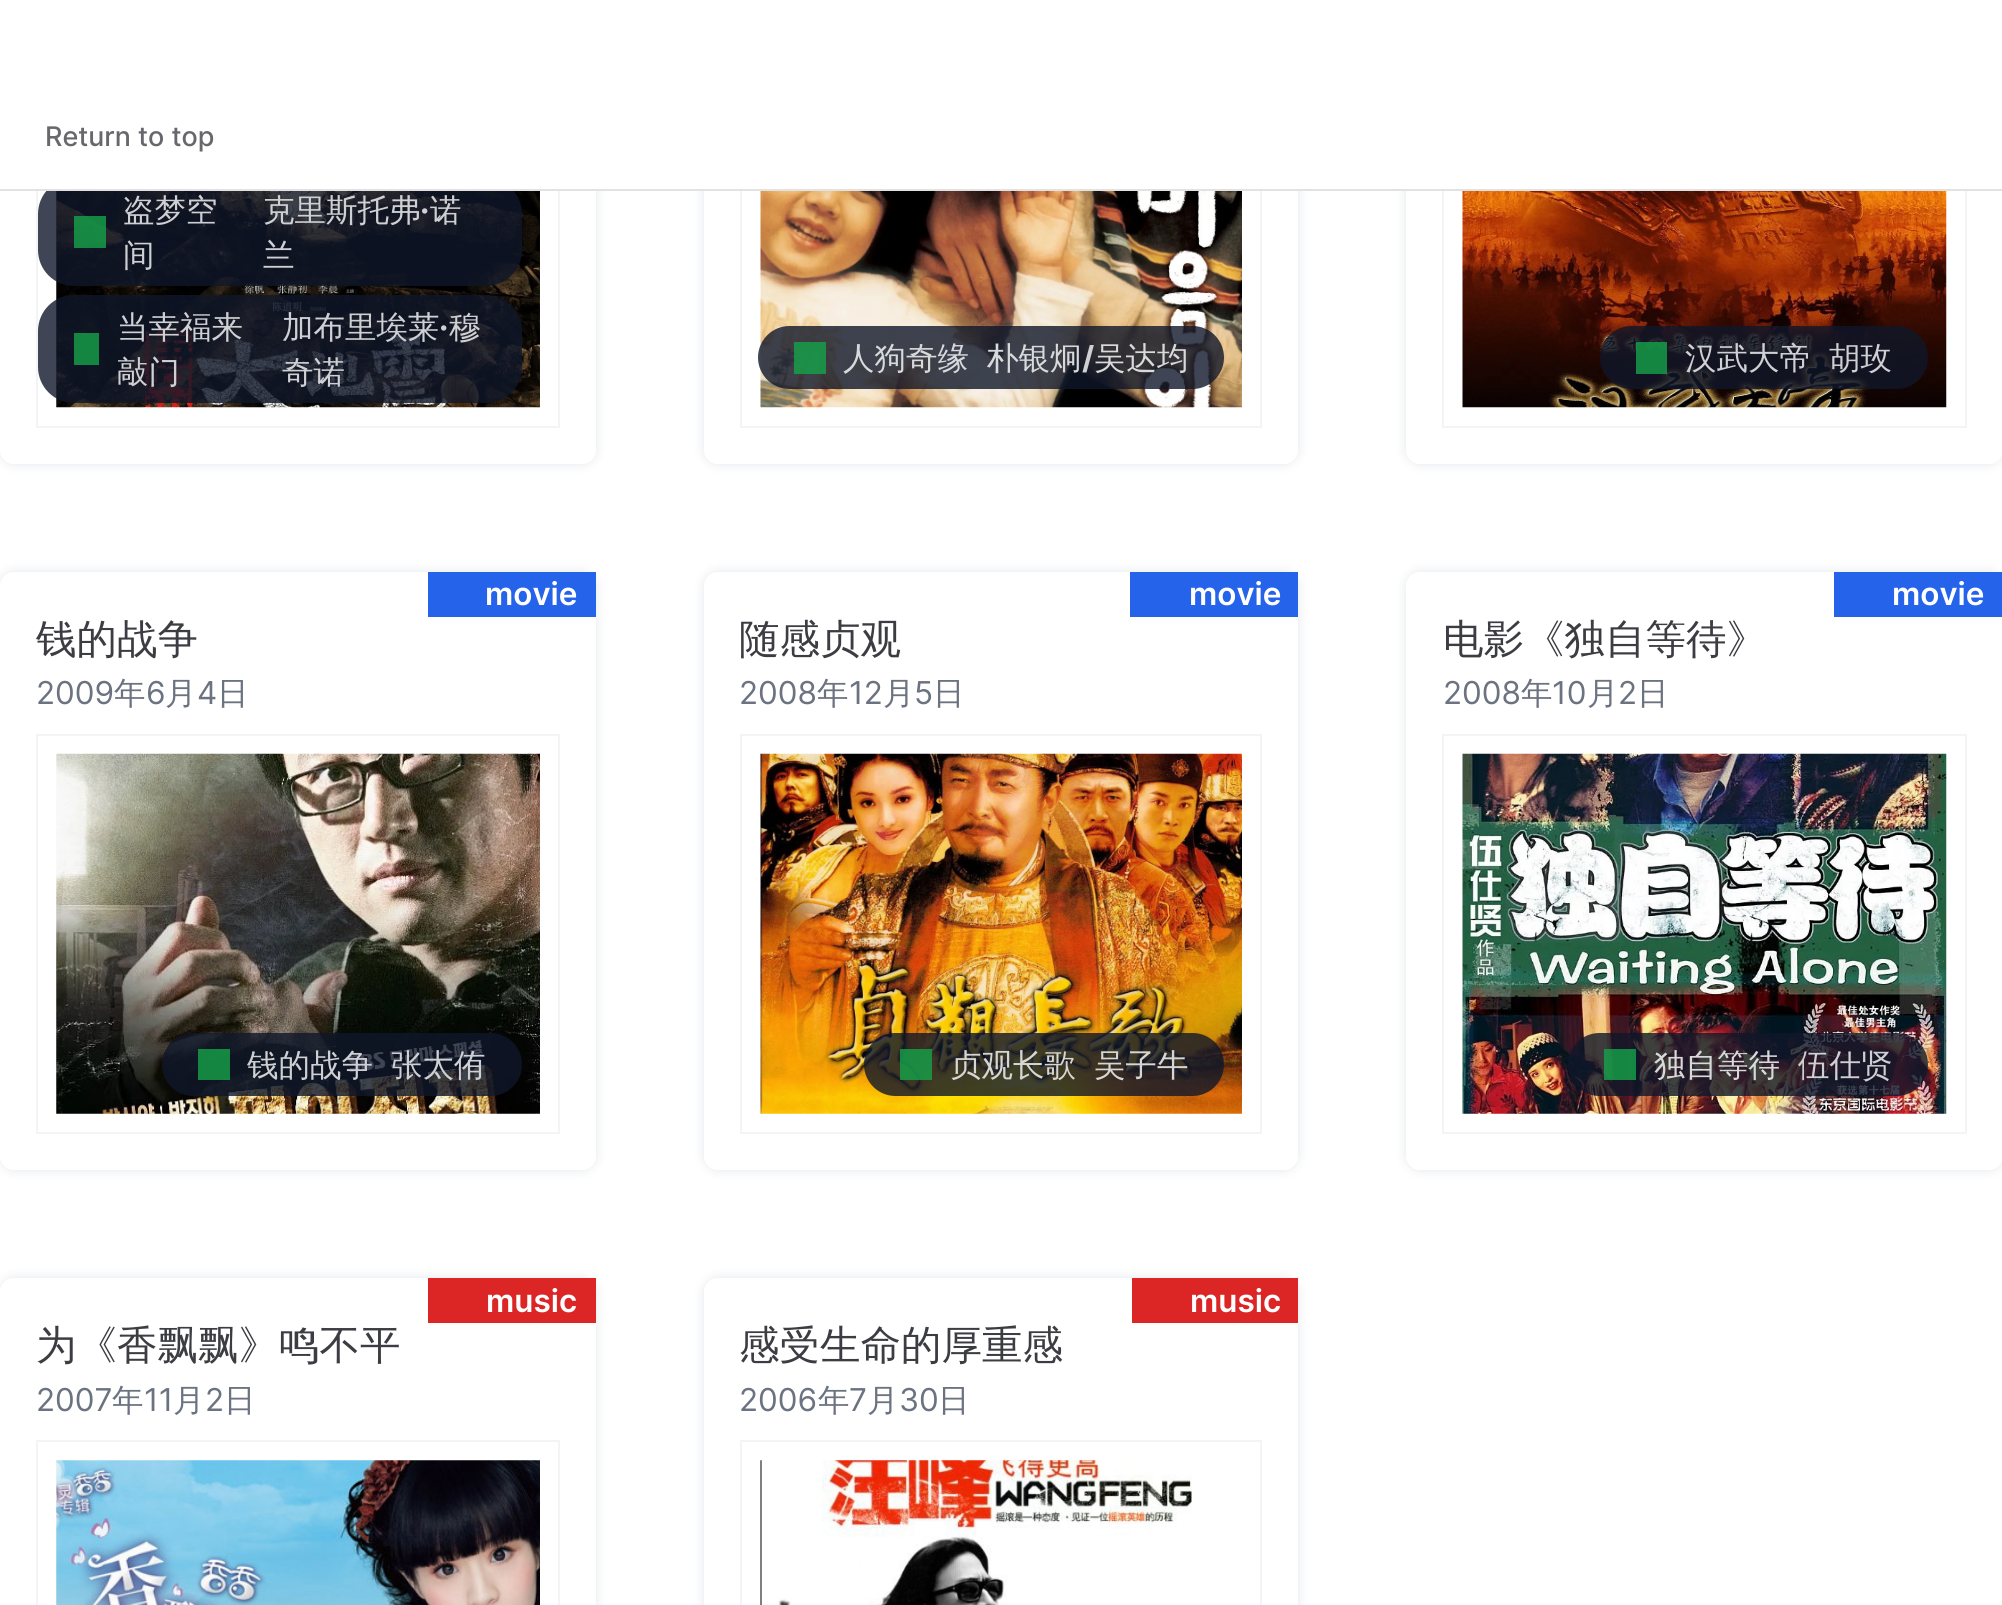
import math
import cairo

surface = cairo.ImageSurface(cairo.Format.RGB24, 2002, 1605)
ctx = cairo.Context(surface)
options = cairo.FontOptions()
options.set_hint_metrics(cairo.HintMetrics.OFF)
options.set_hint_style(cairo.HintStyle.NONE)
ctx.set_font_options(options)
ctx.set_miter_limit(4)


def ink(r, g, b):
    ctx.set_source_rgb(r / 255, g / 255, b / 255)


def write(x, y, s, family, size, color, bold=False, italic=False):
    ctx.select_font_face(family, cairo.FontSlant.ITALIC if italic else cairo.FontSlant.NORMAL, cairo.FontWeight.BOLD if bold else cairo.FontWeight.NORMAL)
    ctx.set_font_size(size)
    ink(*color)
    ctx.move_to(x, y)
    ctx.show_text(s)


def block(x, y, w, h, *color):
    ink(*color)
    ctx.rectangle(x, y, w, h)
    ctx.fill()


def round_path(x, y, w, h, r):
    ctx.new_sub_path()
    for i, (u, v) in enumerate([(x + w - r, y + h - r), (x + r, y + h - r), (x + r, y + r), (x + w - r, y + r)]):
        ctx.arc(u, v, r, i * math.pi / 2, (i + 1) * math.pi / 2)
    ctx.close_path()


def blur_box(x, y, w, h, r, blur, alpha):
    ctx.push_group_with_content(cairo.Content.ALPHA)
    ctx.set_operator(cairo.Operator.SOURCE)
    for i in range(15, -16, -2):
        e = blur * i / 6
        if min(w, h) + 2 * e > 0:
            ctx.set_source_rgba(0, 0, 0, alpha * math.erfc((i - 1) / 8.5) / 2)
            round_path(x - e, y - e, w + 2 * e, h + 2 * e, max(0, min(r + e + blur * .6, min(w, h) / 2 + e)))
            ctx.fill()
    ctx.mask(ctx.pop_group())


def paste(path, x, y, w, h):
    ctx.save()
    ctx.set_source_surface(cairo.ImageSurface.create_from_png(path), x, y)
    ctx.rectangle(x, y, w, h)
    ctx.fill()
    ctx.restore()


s1 = dict(family="Inter Medium", size=27, color=(103, 103, 108))
s2 = dict(family="WenQuanYi Zen Hei Medium", size=31.5, color=(207, 208, 211))
s3 = dict(family="Inter", size=31.5, color=(207, 208, 211), bold=True)
s4 = dict(family="WenQuanYi Zen Hei Medium", size=31.5, color=(216, 217, 219))
s5 = dict(family="Inter SemiBold", size=31.5, color=(255, 255, 255))
s6 = dict(family="WenQuanYi Zen Hei Medium", size=40.5, color=(60, 60, 67))
s7 = dict(family="Inter", size=31.5, color=(107, 114, 128))
s8 = dict(family="WenQuanYi Zen Hei Medium", size=31.5, color=(107, 114, 128))
s9 = dict(family="WenQuanYi Zen Hei Medium", size=31.5, color=(214, 214, 212))

ink(255, 255, 255)
ctx.paint()
ctx.save()
ctx.set_fill_rule(cairo.FillRule.EVEN_ODD)
ctx.new_path()
ctx.move_to(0, 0)
ctx.line_to(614, 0)
ctx.line_to(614, 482)
ctx.line_to(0, 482)
ctx.close_path()
ctx.move_to(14, -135)
ctx.line_to(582, -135)
ctx.curve_to(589.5, -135, 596, -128.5, 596, -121)
ctx.line_to(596, 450)
ctx.curve_to(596, 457.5, 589.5, 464, 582, 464)
ctx.line_to(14, 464)
ctx.curve_to(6.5, 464, 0, 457.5, 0, 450)
ctx.line_to(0, -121)
ctx.curve_to(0, -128.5, 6.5, -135, 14, -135)
ctx.close_path()
ctx.clip()
ink(229, 231, 235)
blur_box(0, -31, 596, 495, 14, 5.5, 1)
ctx.restore()
ctx.rectangle(37, 28, 522, 399)
ink(243, 244, 246)
ctx.stroke()
paste("pic1.png", 56, 191, 484, 217)
ctx.set_source_rgba(0.059, 0.09, 0.165, 0.8)
round_path(38, 178, 484, 108, 36)
ctx.fill()
ctx.save()
ctx.set_fill_rule(cairo.FillRule.EVEN_ODD)
ctx.new_path()
ctx.move_to(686, 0)
ctx.line_to(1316, 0)
ctx.line_to(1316, 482)
ctx.line_to(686, 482)
ctx.close_path()
ctx.move_to(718, -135)
ctx.line_to(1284, -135)
ctx.curve_to(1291.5, -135, 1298, -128.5, 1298, -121)
ctx.line_to(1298, 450)
ctx.curve_to(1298, 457.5, 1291.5, 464, 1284, 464)
ctx.line_to(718, 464)
ctx.curve_to(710.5, 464, 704, 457.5, 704, 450)
ctx.line_to(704, -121)
ctx.curve_to(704, -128.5, 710.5, -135, 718, -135)
ctx.close_path()
ctx.clip()
ink(229, 231, 235)
blur_box(704, -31, 594, 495, 14, 5.5, 1)
ctx.restore()
ctx.rectangle(741, 28, 520, 399)
ink(243, 244, 246)
ctx.stroke()
ctx.save()
ctx.set_fill_rule(cairo.FillRule.EVEN_ODD)
ctx.new_path()
ctx.move_to(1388, 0)
ctx.line_to(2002, 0)
ctx.line_to(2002, 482)
ctx.line_to(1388, 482)
ctx.close_path()
ctx.move_to(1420, -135)
ctx.line_to(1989, -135)
ctx.curve_to(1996.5, -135, 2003, -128.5, 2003, -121)
ctx.line_to(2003, 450)
ctx.curve_to(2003, 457.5, 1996.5, 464, 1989, 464)
ctx.line_to(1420, 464)
ctx.curve_to(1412.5, 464, 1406, 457.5, 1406, 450)
ctx.line_to(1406, -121)
ctx.curve_to(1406, -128.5, 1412.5, -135, 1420, -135)
ctx.close_path()
ctx.clip()
ink(229, 231, 235)
blur_box(1406, -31, 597, 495, 14, 5.5, 1)
ctx.restore()
ctx.rectangle(1443, 28, 523, 399)
ctx.stroke()
block(36, 0, 1931, 189, 255, 255, 255)
block(0, 189, 2002, 2, 226, 226, 227)
write(45, 146, "Return to top", **s1)
ctx.set_source_rgba(0.086, 0.639, 0.29, 0.8)
ctx.rectangle(74, 216, 32, 32)
ctx.fill()
write(123, 221, "盗梦空", **s2)
write(123, 266, "间", **s2)
write(263, 221, "克里斯托弗", **s2)
write(420, 221, "·", **s3)
write(430, 221, "诺", **s2)
write(263, 266, "兰", **s2)
ctx.set_source_rgba(0.059, 0.09, 0.165, 0.8)
round_path(38, 295, 484, 108, 36)
ctx.fill()
ctx.set_source_rgba(0.086, 0.639, 0.29, 0.8)
ctx.rectangle(74, 333, 25, 32)
ctx.fill()
write(117, 338, "当幸福来", **s2)
write(117, 383, "敲门", **s2)
write(282, 338, "加布里埃莱", **s2)
write(439, 338, "·", **s3)
write(449, 338, "穆", **s2)
write(282, 383, "奇诺", **s2)
paste("pic2.png", 760, 191, 482, 217)
ctx.set_source_rgba(0.059, 0.09, 0.165, 0.8)
round_path(758, 326, 466, 63, 31.5)
ctx.fill()
ctx.set_source_rgba(0.086, 0.639, 0.29, 0.8)
ctx.rectangle(794, 342, 32, 32)
ctx.fill()
write(843, 369, "人狗奇缘", **s4)
write(987, 369, "朴银炯", **s4)
write(1082, 369, "/", **s3)
write(1094, 369, "吴达均", **s4)
paste("pic3.png", 1462, 191, 485, 217)
ctx.set_source_rgba(0.059, 0.09, 0.165, 0.8)
round_path(1600, 326, 328, 63, 31.5)
ctx.fill()
ctx.set_source_rgba(0.086, 0.639, 0.29, 0.8)
ctx.rectangle(1636, 342, 31, 32)
ctx.fill()
write(1685, 369, "汉武大帝", **s2)
write(1829, 369, "胡玫", **s2)
ctx.save()
ctx.set_fill_rule(cairo.FillRule.EVEN_ODD)
ctx.new_path()
ctx.move_to(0, 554)
ctx.line_to(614, 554)
ctx.line_to(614, 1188)
ctx.line_to(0, 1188)
ctx.close_path()
ctx.move_to(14, 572)
ctx.line_to(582, 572)
ctx.curve_to(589.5, 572, 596, 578.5, 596, 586)
ctx.line_to(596, 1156)
ctx.curve_to(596, 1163.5, 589.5, 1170, 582, 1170)
ctx.line_to(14, 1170)
ctx.curve_to(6.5, 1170, 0, 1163.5, 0, 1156)
ctx.line_to(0, 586)
ctx.curve_to(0, 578.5, 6.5, 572, 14, 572)
ctx.close_path()
ctx.clip()
ink(229, 231, 235)
blur_box(0, 572, 596, 598, 14, 5.5, 1)
ctx.restore()
block(428, 572, 168, 45, 37, 99, 235)
write(485, 605, "movie", **s5)
write(36, 653, "钱的战争", **s6)
write(36, 704, "2009", **s7)
write(114, 704, "年", **s8)
write(146, 704, "6", **s7)
write(165, 704, "月", **s8)
write(197, 704, "4", **s7)
write(217, 704, "日", **s8)
ctx.rectangle(37, 735, 522, 398)
ink(243, 244, 246)
ctx.stroke()
paste("pic4.png", 56, 753, 484, 361)
ctx.set_source_rgba(0.059, 0.09, 0.165, 0.8)
round_path(162, 1033, 360, 63, 31.5)
ctx.fill()
ctx.set_source_rgba(0.086, 0.639, 0.29, 0.8)
ctx.rectangle(198, 1049, 32, 31)
ctx.fill()
write(247, 1076, "钱的战争", **s2)
write(391, 1076, "张太侑", **s2)
ctx.save()
ctx.set_fill_rule(cairo.FillRule.EVEN_ODD)
ctx.new_path()
ctx.move_to(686, 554)
ctx.line_to(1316, 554)
ctx.line_to(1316, 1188)
ctx.line_to(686, 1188)
ctx.close_path()
ctx.move_to(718, 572)
ctx.line_to(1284, 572)
ctx.curve_to(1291.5, 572, 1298, 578.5, 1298, 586)
ctx.line_to(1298, 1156)
ctx.curve_to(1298, 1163.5, 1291.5, 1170, 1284, 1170)
ctx.line_to(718, 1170)
ctx.curve_to(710.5, 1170, 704, 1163.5, 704, 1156)
ctx.line_to(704, 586)
ctx.curve_to(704, 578.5, 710.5, 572, 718, 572)
ctx.close_path()
ctx.clip()
ink(229, 231, 235)
blur_box(704, 572, 594, 598, 14, 5.5, 1)
ctx.restore()
block(1130, 572, 168, 45, 37, 99, 235)
write(1189, 605, "movie", **s5)
write(739, 653, "随感贞观", **s6)
write(739, 704, "2008", **s7)
write(817, 704, "年", **s8)
write(849, 704, "12", **s7)
write(883, 704, "月", **s8)
write(914, 704, "5", **s7)
write(933, 704, "日", **s8)
ctx.rectangle(741, 735, 520, 398)
ink(243, 244, 246)
ctx.stroke()
paste("pic5.png", 760, 753, 482, 361)
ctx.set_source_rgba(0.059, 0.09, 0.165, 0.8)
round_path(864, 1033, 360, 63, 31.5)
ctx.fill()
ctx.set_source_rgba(0.086, 0.639, 0.29, 0.8)
ctx.rectangle(900, 1049, 32, 31)
ctx.fill()
write(950, 1076, "贞观长歌", **s9)
write(1094, 1076, "吴子牛", **s9)
ctx.save()
ctx.set_fill_rule(cairo.FillRule.EVEN_ODD)
ctx.new_path()
ctx.move_to(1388, 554)
ctx.line_to(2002, 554)
ctx.line_to(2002, 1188)
ctx.line_to(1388, 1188)
ctx.close_path()
ctx.move_to(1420, 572)
ctx.line_to(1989, 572)
ctx.curve_to(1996.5, 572, 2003, 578.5, 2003, 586)
ctx.line_to(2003, 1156)
ctx.curve_to(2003, 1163.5, 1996.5, 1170, 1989, 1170)
ctx.line_to(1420, 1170)
ctx.curve_to(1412.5, 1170, 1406, 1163.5, 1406, 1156)
ctx.line_to(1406, 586)
ctx.curve_to(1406, 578.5, 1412.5, 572, 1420, 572)
ctx.close_path()
ctx.clip()
ink(229, 231, 235)
blur_box(1406, 572, 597, 598, 14, 5.5, 1)
ctx.restore()
block(1834, 572, 168, 45, 37, 99, 235)
write(1892, 605, "movie", **s5)
write(1443, 653, "电影《独自等待》", **s6)
write(1443, 704, "2008", **s7)
write(1521, 704, "年", **s8)
write(1552, 704, "10", **s7)
write(1587, 704, "月", **s8)
write(1618, 704, "2", **s7)
write(1637, 704, "日", **s8)
ctx.rectangle(1443, 735, 523, 398)
ink(243, 244, 246)
ctx.stroke()
paste("pic6.png", 1462, 753, 485, 361)
ctx.set_source_rgba(0.059, 0.09, 0.165, 0.8)
round_path(1568, 1033, 360, 63, 31.5)
ctx.fill()
ctx.set_source_rgba(0.086, 0.639, 0.29, 0.8)
ctx.rectangle(1604, 1049, 32, 31)
ctx.fill()
write(1654, 1076, "独自等待", **s4)
write(1798, 1076, "伍仕贤", **s2)
ctx.save()
ctx.set_fill_rule(cairo.FillRule.EVEN_ODD)
ctx.new_path()
ctx.move_to(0, 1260)
ctx.line_to(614, 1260)
ctx.line_to(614, 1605)
ctx.line_to(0, 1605)
ctx.close_path()
ctx.move_to(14, 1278)
ctx.line_to(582, 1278)
ctx.curve_to(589.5, 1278, 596, 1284.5, 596, 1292)
ctx.line_to(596, 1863)
ctx.curve_to(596, 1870.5, 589.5, 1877, 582, 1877)
ctx.line_to(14, 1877)
ctx.curve_to(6.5, 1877, 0, 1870.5, 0, 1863)
ctx.line_to(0, 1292)
ctx.curve_to(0, 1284.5, 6.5, 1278, 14, 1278)
ctx.close_path()
ctx.clip()
ink(229, 231, 235)
blur_box(0, 1278, 596, 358, 14, 5.5, 1)
ctx.restore()
block(428, 1278, 168, 45, 220, 38, 38)
write(486, 1312, "music", **s5)
write(36, 1359, "为《香飘飘》鸣不平", **s6)
write(36, 1411, "2007", **s7)
write(112, 1411, "年", **s8)
write(144, 1411, "11", **s7)
write(173, 1411, "月", **s8)
write(205, 1411, "2", **s7)
write(224, 1411, "日", **s8)
ctx.rectangle(37, 1441, 522, 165)
ink(243, 244, 246)
ctx.stroke()
paste("pic7.png", 56, 1460, 484, 145)
ctx.save()
ctx.set_fill_rule(cairo.FillRule.EVEN_ODD)
ctx.new_path()
ctx.move_to(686, 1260)
ctx.line_to(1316, 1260)
ctx.line_to(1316, 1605)
ctx.line_to(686, 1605)
ctx.close_path()
ctx.move_to(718, 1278)
ctx.line_to(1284, 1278)
ctx.curve_to(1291.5, 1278, 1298, 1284.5, 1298, 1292)
ctx.line_to(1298, 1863)
ctx.curve_to(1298, 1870.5, 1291.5, 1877, 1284, 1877)
ctx.line_to(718, 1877)
ctx.curve_to(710.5, 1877, 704, 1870.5, 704, 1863)
ctx.line_to(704, 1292)
ctx.curve_to(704, 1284.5, 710.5, 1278, 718, 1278)
ctx.close_path()
ctx.clip()
ink(229, 231, 235)
blur_box(704, 1278, 594, 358, 14, 5.5, 1)
ctx.restore()
block(1132, 1278, 166, 45, 220, 38, 38)
write(1190, 1312, "music", **s5)
write(739, 1359, "感受生命的厚重感", **s6)
write(739, 1411, "2006", **s7)
write(818, 1411, "年", **s8)
write(849, 1411, "7", **s7)
write(867, 1411, "月", **s8)
write(899, 1411, "30", **s7)
write(938, 1411, "日", **s8)
ctx.rectangle(741, 1441, 520, 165)
ink(243, 244, 246)
ctx.stroke()
paste("pic8.png", 760, 1460, 432, 145)
surface.write_to_png("screenshot.png")
